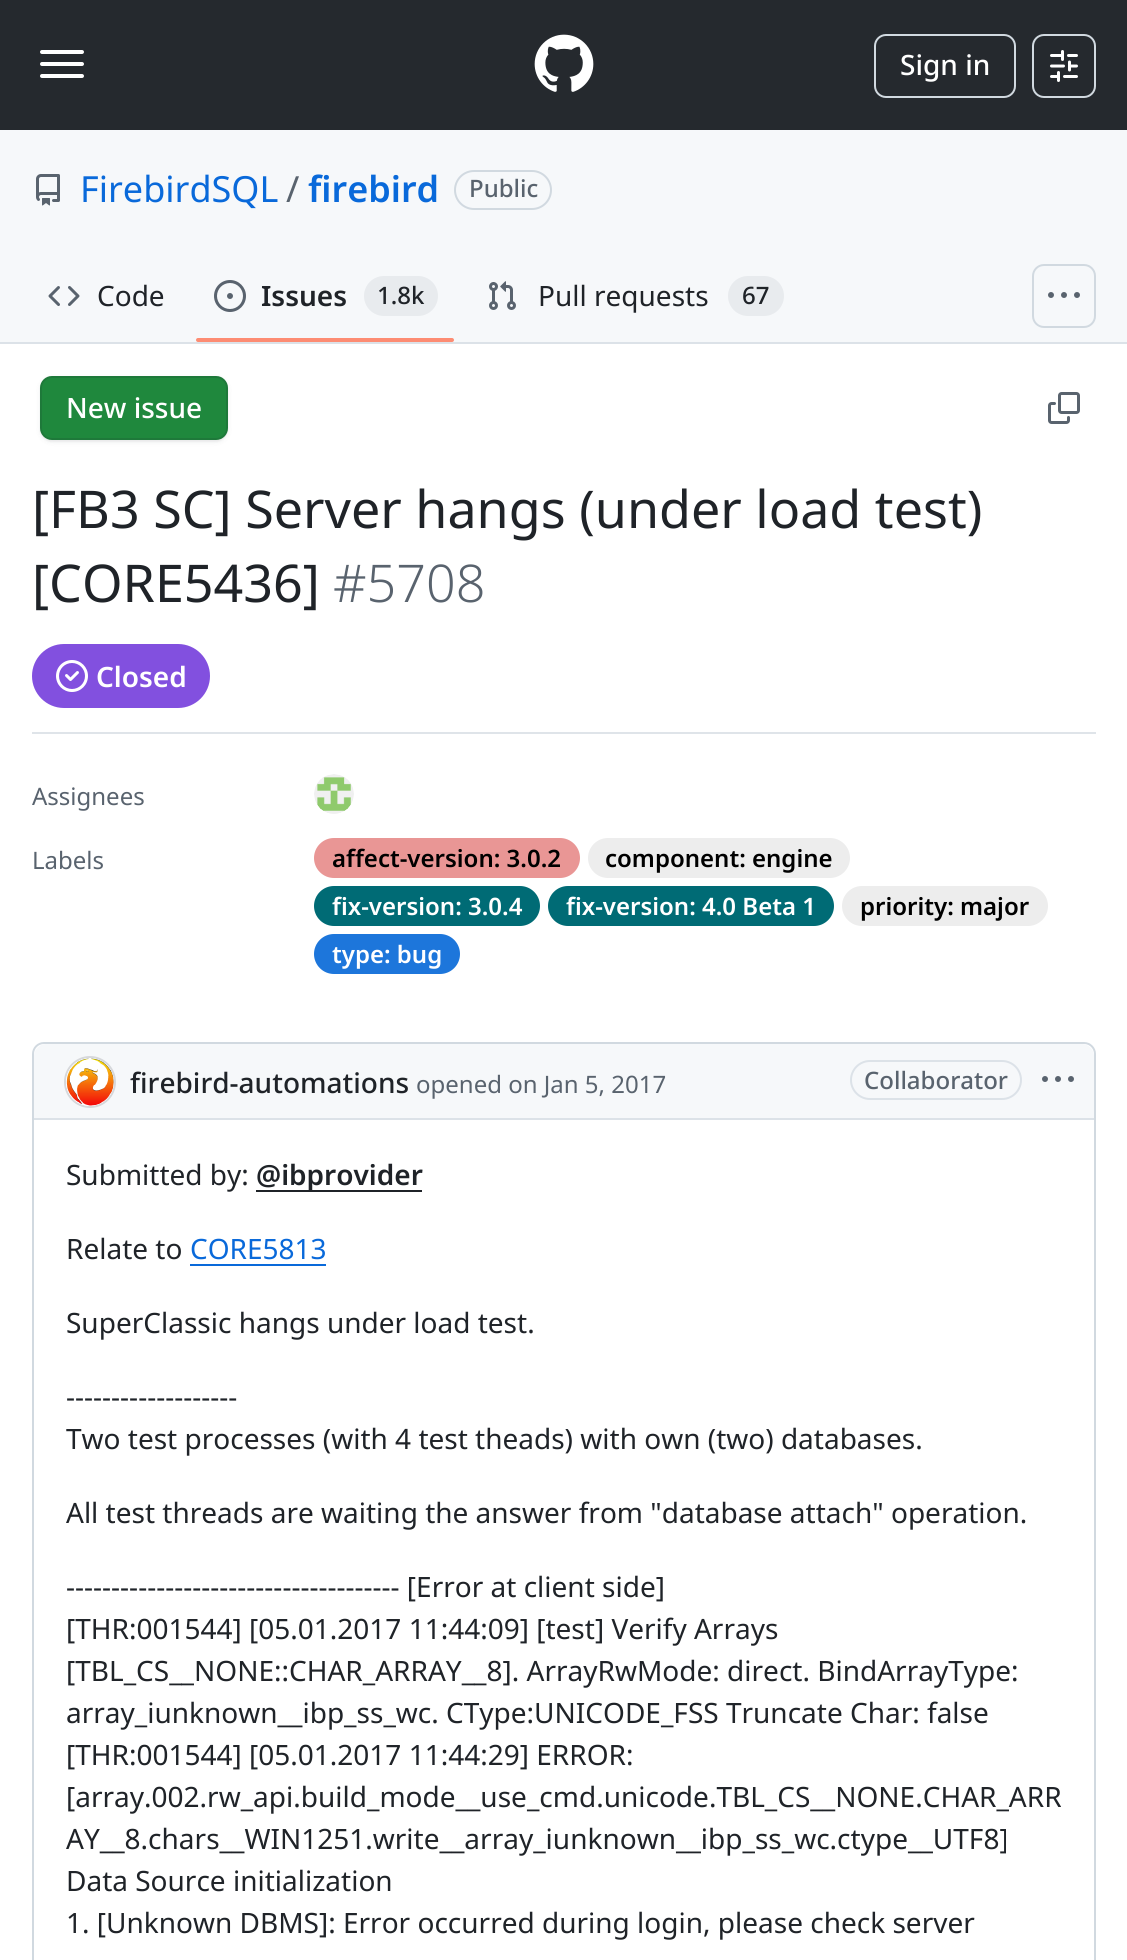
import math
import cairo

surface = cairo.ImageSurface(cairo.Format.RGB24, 1127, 1960)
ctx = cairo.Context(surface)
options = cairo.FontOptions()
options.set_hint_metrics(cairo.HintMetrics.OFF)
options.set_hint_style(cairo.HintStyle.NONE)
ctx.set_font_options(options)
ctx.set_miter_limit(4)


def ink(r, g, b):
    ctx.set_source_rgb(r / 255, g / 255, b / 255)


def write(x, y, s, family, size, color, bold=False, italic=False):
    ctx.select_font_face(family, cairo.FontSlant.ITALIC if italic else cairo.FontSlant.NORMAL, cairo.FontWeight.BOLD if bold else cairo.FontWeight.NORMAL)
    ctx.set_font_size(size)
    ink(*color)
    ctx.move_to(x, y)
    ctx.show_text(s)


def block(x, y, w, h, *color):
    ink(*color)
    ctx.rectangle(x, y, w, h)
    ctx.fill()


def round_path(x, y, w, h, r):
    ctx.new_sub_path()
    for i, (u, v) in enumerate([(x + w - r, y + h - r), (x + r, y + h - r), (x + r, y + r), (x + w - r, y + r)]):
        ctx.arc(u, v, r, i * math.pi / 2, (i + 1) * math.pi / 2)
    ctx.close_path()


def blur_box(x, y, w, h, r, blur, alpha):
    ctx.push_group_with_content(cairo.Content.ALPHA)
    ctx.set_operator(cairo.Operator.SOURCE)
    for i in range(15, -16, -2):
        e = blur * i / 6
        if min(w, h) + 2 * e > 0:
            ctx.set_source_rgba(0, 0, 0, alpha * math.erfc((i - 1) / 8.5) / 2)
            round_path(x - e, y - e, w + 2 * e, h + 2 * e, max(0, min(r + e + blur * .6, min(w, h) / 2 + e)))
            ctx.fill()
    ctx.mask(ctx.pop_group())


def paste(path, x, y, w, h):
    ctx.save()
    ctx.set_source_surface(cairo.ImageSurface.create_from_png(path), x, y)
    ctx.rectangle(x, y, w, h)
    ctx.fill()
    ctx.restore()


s1 = dict(family="Noto Sans Medium", size=28, color=(255, 255, 255))
s2 = dict(family="Noto Sans", size=36, color=(9, 105, 218))
s3 = dict(family="Noto Sans", size=36, color=(89, 99, 110))
s4 = dict(family="Noto Sans SemiBold", size=36, color=(9, 105, 218))
s5 = dict(family="Noto Sans Medium", size=24, color=(89, 99, 110))
s6 = dict(family="Noto Sans", size=28, color=(31, 35, 40))
s7 = dict(family="Noto Sans SemiBold", size=28, color=(31, 35, 40))
s8 = dict(family="Noto Sans Medium", size=24, color=(31, 35, 40))
s9 = dict(family="Noto Sans", size=52, color=(31, 35, 40))
s10 = dict(family="Noto Sans Light", size=52, color=(89, 99, 110))
s11 = dict(family="Noto Sans SemiBold", size=28, color=(255, 255, 255))
s12 = dict(family="Noto Sans", size=24, color=(89, 99, 110))
s13 = dict(family="Noto Sans SemiBold", size=24, color=(0, 0, 0))
s14 = dict(family="Noto Sans SemiBold", size=24, color=(255, 255, 255))
s15 = dict(family="Noto Sans Medium", size=28, color=(31, 35, 40))
s16 = dict(family="Noto Sans", size=28, color=(9, 105, 218))

ink(255, 255, 255)
ctx.paint()
block(0, 0, 1127, 130, 37, 41, 46)
ink(255, 255, 255)
round_path(40, 50, 44, 4, 2)
ctx.fill()
round_path(40, 62, 44, 4, 2)
ctx.fill()
round_path(40, 74, 44, 4, 2)
ctx.fill()
paste("pic1.png", 534, 34, 60, 58)
round_path(875, 35, 140, 62, 11)
ink(209, 217, 224)
ctx.stroke()
write(900, 75, "Sign in", **s1)
round_path(1033, 35, 62, 62, 11)
ink(209, 217, 224)
ctx.stroke()
paste("pic2.png", 1050, 50, 28, 32)
block(0, 130, 1127, 212, 246, 248, 250)
paste("pic3.png", 36, 174, 24, 32)
write(80, 202, "FirebirdSQL", **s2)
write(286, 202, "/", **s3)
write(308, 202, "firebird", **s4)
round_path(455, 171, 96, 38, 19)
ink(209, 217, 224)
ctx.stroke()
write(469, 197, "Public", **s5)
block(0, 342, 1127, 2, 220, 226, 232)
paste("pic4.png", 48, 286, 32, 20)
write(97, 306, "Code", **s6)
paste("pic5.png", 214, 280, 32, 32)
write(261, 306, "Issues", **s7)
ink(232, 235, 238)
round_path(364, 276, 74, 40, 20)
ctx.fill()
write(377, 304, "1.8k", **s8)
ink(253, 140, 115)
round_path(196, 338, 258, 4, 2)
ctx.fill()
paste("pic6.png", 489, 281, 27, 29)
write(538, 306, "Pull requests", **s6)
ink(232, 235, 238)
round_path(728, 276, 56, 40, 20)
ctx.fill()
write(742, 304, "67", **s8)
round_path(1033, 265, 62, 62, 11)
ink(209, 217, 224)
ctx.stroke()
paste("pic7.png", 1048, 292, 32, 6)
ink(31, 35, 40)
blur_box(40, 378, 188, 64, 12, 3, 0.06)
blur_box(40, 378, 188, 64, 12, 1, 0.06)
ink(31, 136, 61)
round_path(40, 376, 188, 64, 12)
ctx.fill()
round_path(41, 377, 186, 62, 11)
ctx.set_source_rgba(0.122, 0.137, 0.157, 0.15)
ctx.stroke()
write(66, 418, "New issue", **s1)
paste("pic8.png", 1048, 392, 32, 32)
write(32, 528, "[FB3 SC] Server hangs (under load test)", **s9)
write(32, 602, "[CORE5436]", **s9)
write(333, 602, "#5708", **s10)
block(32, 732, 1064, 2, 223, 228, 233)
ink(130, 80, 223)
round_path(33, 645, 176, 62, 31)
ctx.fill_preserve()
ctx.stroke()
paste("pic9.png", 56, 660, 32, 32)
write(96, 687, "Closed", **s11)
write(32, 805, "Assignees", **s12)
paste("pic10.png", 314, 774, 40, 40)
write(32, 869, "Labels", **s12)
ink(233, 150, 149)
round_path(314, 838, 266, 40, 20)
ctx.fill()
write(332, 867, "affect-version: 3.0.2", **s13)
ink(237, 237, 237)
round_path(588, 838, 262, 40, 20)
ctx.fill()
write(605, 867, "component: engine", **s13)
ink(0, 107, 117)
round_path(314, 886, 226, 40, 20)
ctx.fill()
write(332, 915, "fix-version: 3.0.4", **s14)
ink(0, 107, 117)
round_path(548, 886, 286, 40, 20)
ctx.fill()
write(566, 915, "fix-version: 4.0 Beta 1", **s14)
ink(237, 237, 237)
round_path(842, 886, 206, 40, 20)
ctx.fill()
write(860, 915, "priority: major", **s13)
ink(29, 118, 219)
round_path(314, 934, 146, 40, 20)
ctx.fill()
write(332, 963, "type: bug", **s14)
round_path(33, 1043, 1062, 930, 11)
ink(209, 217, 224)
ctx.stroke()
ink(246, 248, 250)
ctx.new_path()
ctx.move_to(46, 1044)
ctx.line_to(1082, 1044)
ctx.curve_to(1088.5, 1044, 1094, 1049.5, 1094, 1056)
ctx.line_to(1094, 1120)
ctx.line_to(34, 1120)
ctx.line_to(34, 1056)
ctx.curve_to(34, 1049.5, 39.5, 1044, 46, 1044)
ctx.close_path()
ctx.fill()
block(34, 1118, 1060, 2, 220, 226, 232)
ctx.arc(90, 1082, 25, 0, 2 * math.pi)
ink(214, 216, 219)
ctx.stroke()
paste("pic11.png", 66, 1058, 48, 48)
write(130, 1093, "firebird-automations", **s15)
write(416, 1093, "opened on Jan 5, 2017", **s12)
round_path(851, 1061, 170, 38, 19)
ink(220, 226, 232)
ctx.stroke()
write(864, 1089, "Collaborator", **s5)
paste("pic7.png", 1042, 1076, 32, 6)
write(66, 1185, "Submitted by:", **s6)
block(256, 1190, 166, 2, 31, 35, 40)
write(256, 1185, "@ibprovider", **s7)
write(66, 1259, "Relate to", **s6)
write(190, 1259, "CORE5813", **s16)
block(190, 1264, 136, 2, 9, 105, 218)
write(66, 1333, "SuperClassic hangs under load test.", **s6)
write(66, 1407, "-------------------", **s6)
write(66, 1449, "Two test processes (with 4 test theads) with own (two) databases.", **s6)
write(66, 1523, "All test threads are waiting the answer from \"database attach\" operation.", **s6)
write(66, 1597, "------------------------------------- [Error at client side]", **s6)
write(66, 1639, "[THR:001544] [05.01.2017 11:44:09] [test] Verify Arrays", **s6)
write(66, 1681, "[TBL_CS__NONE::CHAR_ARRAY__8]. ArrayRwMode: direct. BindArrayType:", **s6)
write(66, 1723, "array_iunknown__ibp_ss_wc. CType:UNICODE_FSS Truncate Char: false", **s6)
write(66, 1765, "[THR:001544] [05.01.2017 11:44:29] ERROR:", **s6)
write(66, 1807, "[array.002.rw_api.build_mode__use_cmd.unicode.TBL_CS__NONE.CHAR_ARR", **s6)
write(66, 1849, "AY__8.chars__WIN1251.write__array_iunknown__ibp_ss_wc.ctype__UTF8]", **s6)
write(66, 1891, "Data Source initialization", **s6)
write(66, 1933, "1. [Unknown DBMS]: Error occurred during login, please check server", **s6)
surface.write_to_png("screenshot.png")
